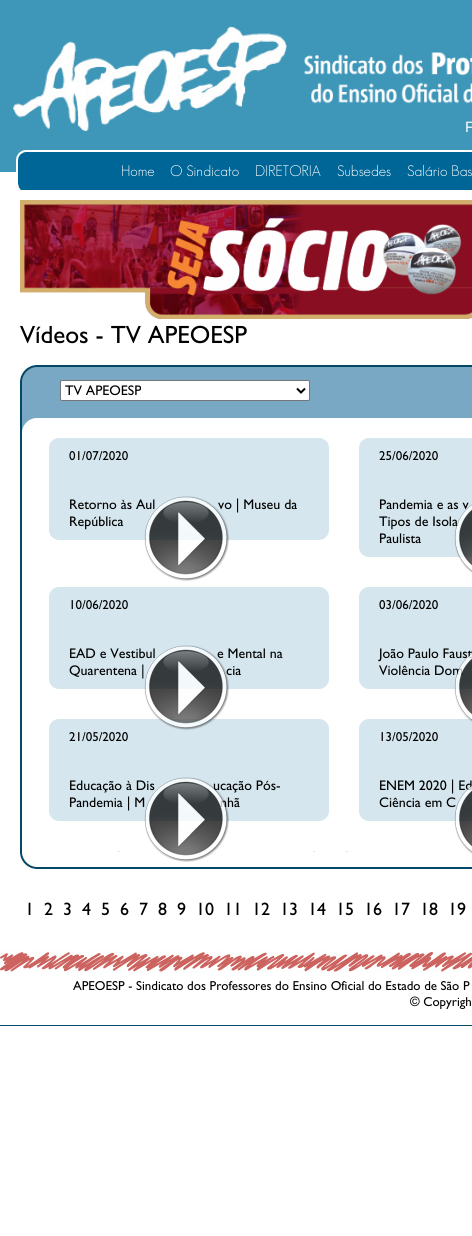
import math
import cairo

surface = cairo.ImageSurface(cairo.Format.RGB24, 472, 1236)
ctx = cairo.Context(surface)
options = cairo.FontOptions()
options.set_hint_metrics(cairo.HintMetrics.OFF)
options.set_hint_style(cairo.HintStyle.NONE)
ctx.set_font_options(options)
ctx.set_miter_limit(4)


def ink(r, g, b):
    ctx.set_source_rgb(r / 255, g / 255, b / 255)


def write(x, y, s, family, size, color, bold=False, italic=False):
    ctx.select_font_face(family, cairo.FontSlant.ITALIC if italic else cairo.FontSlant.NORMAL, cairo.FontWeight.BOLD if bold else cairo.FontWeight.NORMAL)
    ctx.set_font_size(size)
    ink(*color)
    ctx.move_to(x, y)
    ctx.show_text(s)


def block(x, y, w, h, *color):
    ink(*color)
    ctx.rectangle(x, y, w, h)
    ctx.fill()


def round_path(x, y, w, h, r):
    ctx.new_sub_path()
    for i, (u, v) in enumerate([(x + w - r, y + h - r), (x + r, y + h - r), (x + r, y + r), (x + w - r, y + r)]):
        ctx.arc(u, v, r, i * math.pi / 2, (i + 1) * math.pi / 2)
    ctx.close_path()


def paste(path, x, y, w, h):
    ctx.save()
    ctx.set_source_surface(cairo.ImageSurface.create_from_png(path), x, y)
    ctx.rectangle(x, y, w, h)
    ctx.fill()
    ctx.restore()


s1 = dict(family="Liberation Sans", size=15, color=(255, 255, 255))
s2 = dict(family="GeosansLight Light", size=15, color=(255, 255, 255))
s3 = dict(family="Gill Sans", size=25, color=(0, 0, 0))
s4 = dict(family="Gill Sans", size=14, color=(0, 0, 0))
s5 = dict(family="Gill Sans", size=13, color=(0, 0, 0))
s6 = dict(family="Gill Sans", size=18, color=(0, 0, 0))

ink(255, 255, 255)
ctx.paint()
block(0, 0, 472, 172, 62, 151, 185)
paste("pic1.png", 10, 25, 279, 108)
paste("pic2.png", 303, 52, 169, 52)
write(465, 132, "F", **s1)
block(26, 152, 446, 38, 0, 102, 151)
paste("pic3.png", 16, 150, 10, 40)
block(26, 150, 446, 2, 255, 255, 255)
write(121, 176, "Home", **s2)
write(170, 176, "O Sindicato", **s2)
write(255, 176, "DIRETORIA", **s2)
write(337, 176, "Subsedes", **s2)
write(407, 176, "Salário Bas", **s2)
paste("pic4.png", 20, 200, 452, 119)
write(20, 343, "Vídeos - TV APEOESP", **s3)
paste("pic5.png", 20, 365, 452, 73)
ink(255, 255, 255)
round_path(60.5, 380.5, 249, 20, 1.5)
ctx.fill_preserve()
ink(118, 118, 118)
ctx.set_line_width(1)
ctx.stroke()
ctx.new_path()
ctx.move_to(297, 388.5)
ctx.line_to(301, 392.5)
ctx.line_to(305, 388.5)
ink(0, 0, 0)
ctx.set_line_width(2)
ctx.stroke()
write(65, 395, "TV APEOESP", **s4)
block(20, 438, 2, 413, 3, 72, 103)
ink(213, 230, 238)
round_path(49, 438, 280, 102, 10)
ctx.fill()
write(69, 460, "01/07/2020", **s5)
write(69, 509, "Retorno às Aul", **s4)
write(218, 509, "vo | Museu da", **s4)
paste("pic6.png", 144, 496, 85, 85)
write(69, 526, "República", **s4)
ink(213, 230, 238)
round_path(359, 438, 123, 119, 10)
ctx.fill()
write(379, 460, "25/06/2020", **s5)
write(379, 509, "Pandemia e as v", **s4)
write(379, 526, "Tipos de Isola", **s4)
write(379, 543, "Paulista", **s4)
paste("pic7.png", 454, 504, 18, 69)
ink(213, 230, 238)
round_path(49, 587, 280, 102, 10)
ctx.fill()
write(69, 609, "10/06/2020", **s5)
write(69, 658, "EAD e Vestibul", **s4)
write(217, 658, "e Mental na", **s4)
write(226, 675, "cia", **s4)
ink(213, 230, 238)
round_path(49, 719, 280, 102, 10)
ctx.fill()
paste("pic8.png", 144, 645, 85, 85)
write(69, 675, "Quarentena |", **s4)
ink(213, 230, 238)
round_path(359, 587, 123, 102, 10)
ctx.fill()
write(379, 609, "03/06/2020", **s5)
write(379, 658, "João Paulo Faust", **s4)
write(379, 675, "Violência Dom", **s4)
ink(213, 230, 238)
round_path(359, 719, 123, 102, 10)
ctx.fill()
paste("pic9.png", 454, 653, 18, 69)
write(69, 741, "21/05/2020", **s5)
write(69, 790, "Educação à Dis", **s4)
write(213, 790, "ucação Pós-", **s4)
write(69, 807, "Pandemia | M", **s4)
write(220, 807, "nhã", **s4)
paste("pic12.png", 20, 851, 452, 18)
paste("pic10.png", 144, 777, 85, 85)
write(379, 741, "13/05/2020", **s5)
write(379, 790, "ENEM 2020 | Ed", **s4)
write(379, 807, "Ciência em C", **s4)
paste("pic11.png", 454, 785, 18, 69)
write(25, 915, "1", **s6)
write(44, 915, "2", **s6)
write(63, 915, "3", **s6)
write(82, 915, "4", **s6)
write(101, 915, "5", **s6)
write(120, 915, "6", **s6)
write(139, 915, "7", **s6)
write(158, 915, "8", **s6)
write(177, 915, "9", **s6)
write(196, 915, "10", **s6)
write(224, 915, "11", **s6)
write(252, 915, "12", **s6)
write(280, 915, "13", **s6)
write(308, 915, "14", **s6)
write(336, 915, "15", **s6)
write(364, 915, "16", **s6)
write(392, 915, "17", **s6)
write(420, 915, "18", **s6)
write(448, 915, "19", **s6)
paste("pic13.png", 0, 950, 472, 23)
block(0, 1025, 472, 1, 3, 72, 105)
write(73, 990, "APEOESP - Sindicato dos Professores do Ensino Oficial do Estado de São P", **s5)
write(410, 1006, "© Copyrigh", **s5)
surface.write_to_png("screenshot.png")
